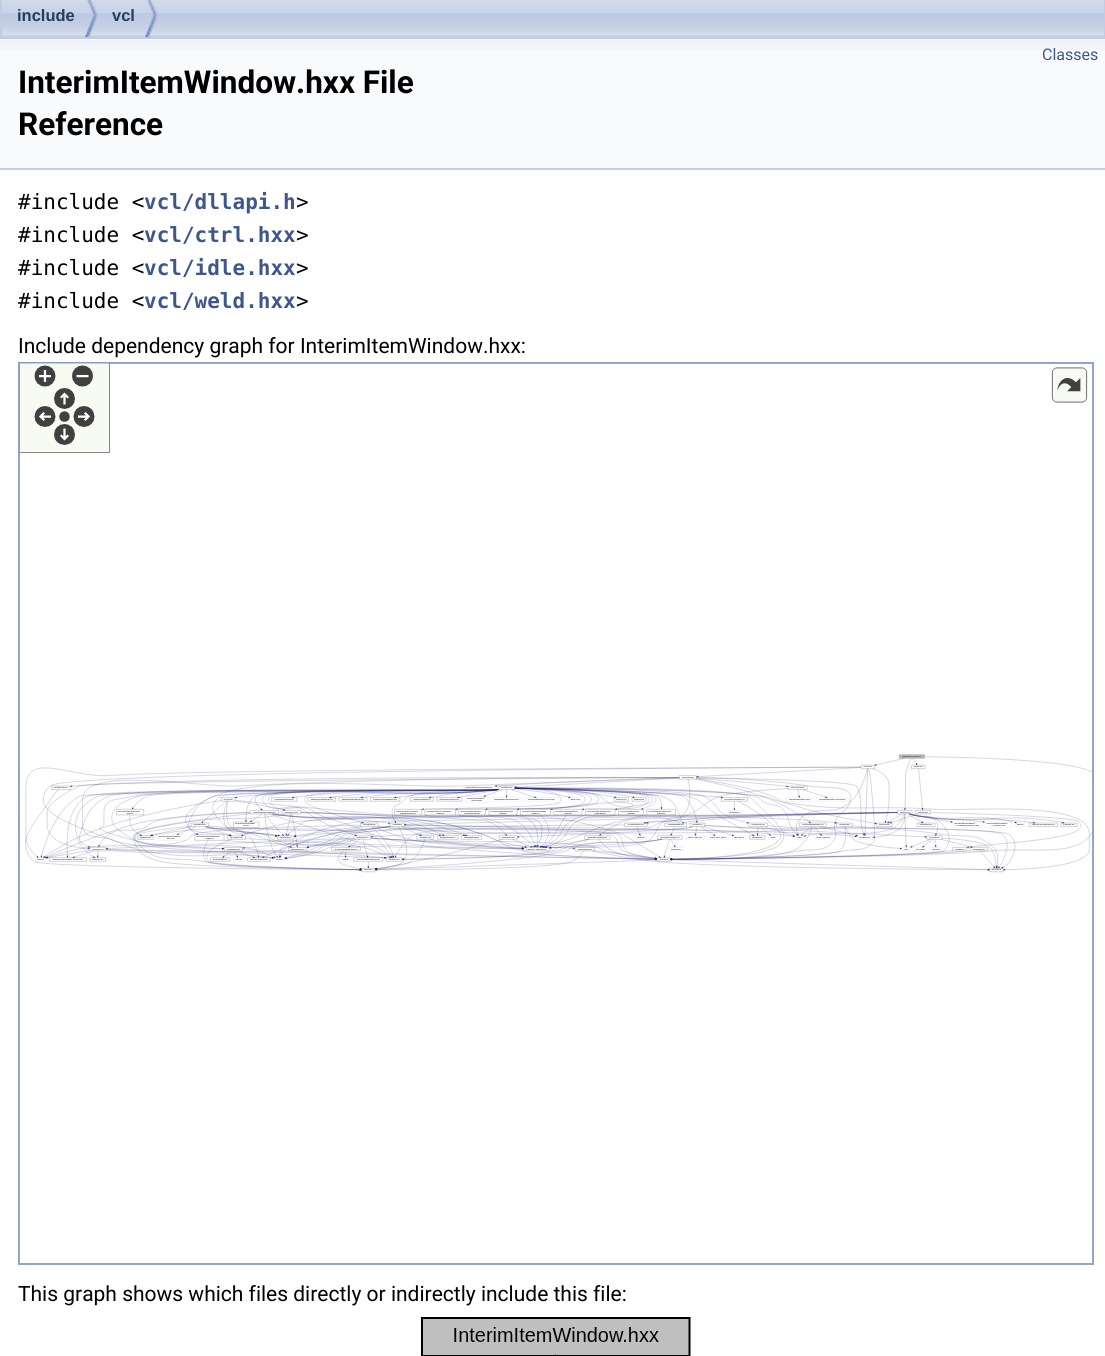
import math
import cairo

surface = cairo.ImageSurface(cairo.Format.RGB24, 1105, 1356)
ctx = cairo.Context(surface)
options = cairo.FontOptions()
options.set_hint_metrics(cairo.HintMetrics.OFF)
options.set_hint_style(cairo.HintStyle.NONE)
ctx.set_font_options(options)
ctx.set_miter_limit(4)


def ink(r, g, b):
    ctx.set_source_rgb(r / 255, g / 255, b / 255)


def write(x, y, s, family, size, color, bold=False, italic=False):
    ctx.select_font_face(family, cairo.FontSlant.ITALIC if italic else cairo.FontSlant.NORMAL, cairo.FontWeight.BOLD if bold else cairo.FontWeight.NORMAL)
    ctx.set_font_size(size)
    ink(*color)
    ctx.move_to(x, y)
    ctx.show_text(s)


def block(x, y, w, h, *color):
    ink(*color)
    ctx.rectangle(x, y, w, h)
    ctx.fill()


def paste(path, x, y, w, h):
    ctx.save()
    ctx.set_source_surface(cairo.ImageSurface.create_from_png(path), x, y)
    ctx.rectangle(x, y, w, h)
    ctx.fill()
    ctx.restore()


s1 = dict(family="Liberation Sans", size=16.5, color=(40, 58, 93), bold=True)
s2 = dict(family="Roboto", size=16, color=(61, 87, 140))
s3 = dict(family="Roboto", size=31.5, color=(0, 0, 0), bold=True)
s4 = dict(family="DejaVu Sans Mono", size=21, color=(0, 0, 0))
s5 = dict(family="DejaVu Sans Mono", size=21, color=(61, 87, 140), bold=True)
s6 = dict(family="Roboto", size=21, color=(0, 0, 0))

ink(255, 255, 255)
ctx.paint()
paste("pic1.png", 2, 0, 1102, 37)
ctx.rectangle(1, -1, 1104, 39)
ink(194, 205, 228)
ctx.stroke()
paste("pic2.png", 85, 0, 13, 37)
write(17, 21, "include", **s1)
paste("pic2.png", 145, 0, 13, 37)
write(112, 21, "vcl", **s1)
block(0, 39, 1105, 129, 249, 250, 252)
paste("pic3.png", 0, 40, 1105, 10)
block(0, 168, 1105, 2, 196, 207, 229)
write(1042, 60, "Classes", **s2)
write(18, 93, "InterimItemWindow.hxx File", **s3)
write(18, 135, "Reference", **s3)
write(18, 209, "#include <", **s4)
write(144, 209, "vcl/dllapi.h", **s5)
write(296, 209, ">", **s4)
write(18, 242, "#include <", **s4)
write(144, 242, "vcl/ctrl.hxx", **s5)
write(296, 242, ">", **s4)
write(18, 275, "#include <", **s4)
write(144, 275, "vcl/idle.hxx", **s5)
write(296, 275, ">", **s4)
write(18, 308, "#include <", **s4)
write(144, 308, "vcl/weld.hxx", **s5)
write(296, 308, ">", **s4)
write(18, 353, "Include dependency graph for InterimItemWindow.hxx:", **s6)
ctx.rectangle(19, 363, 1074, 901)
ink(144, 165, 206)
ctx.stroke()
paste("pic4.png", 19, 362, 1073, 511)
write(18, 1301, "This graph shows which files directly or indirectly include this file:", **s6)
paste("pic5.png", 421, 1317, 270, 39)
surface.write_to_png("screenshot.png")
